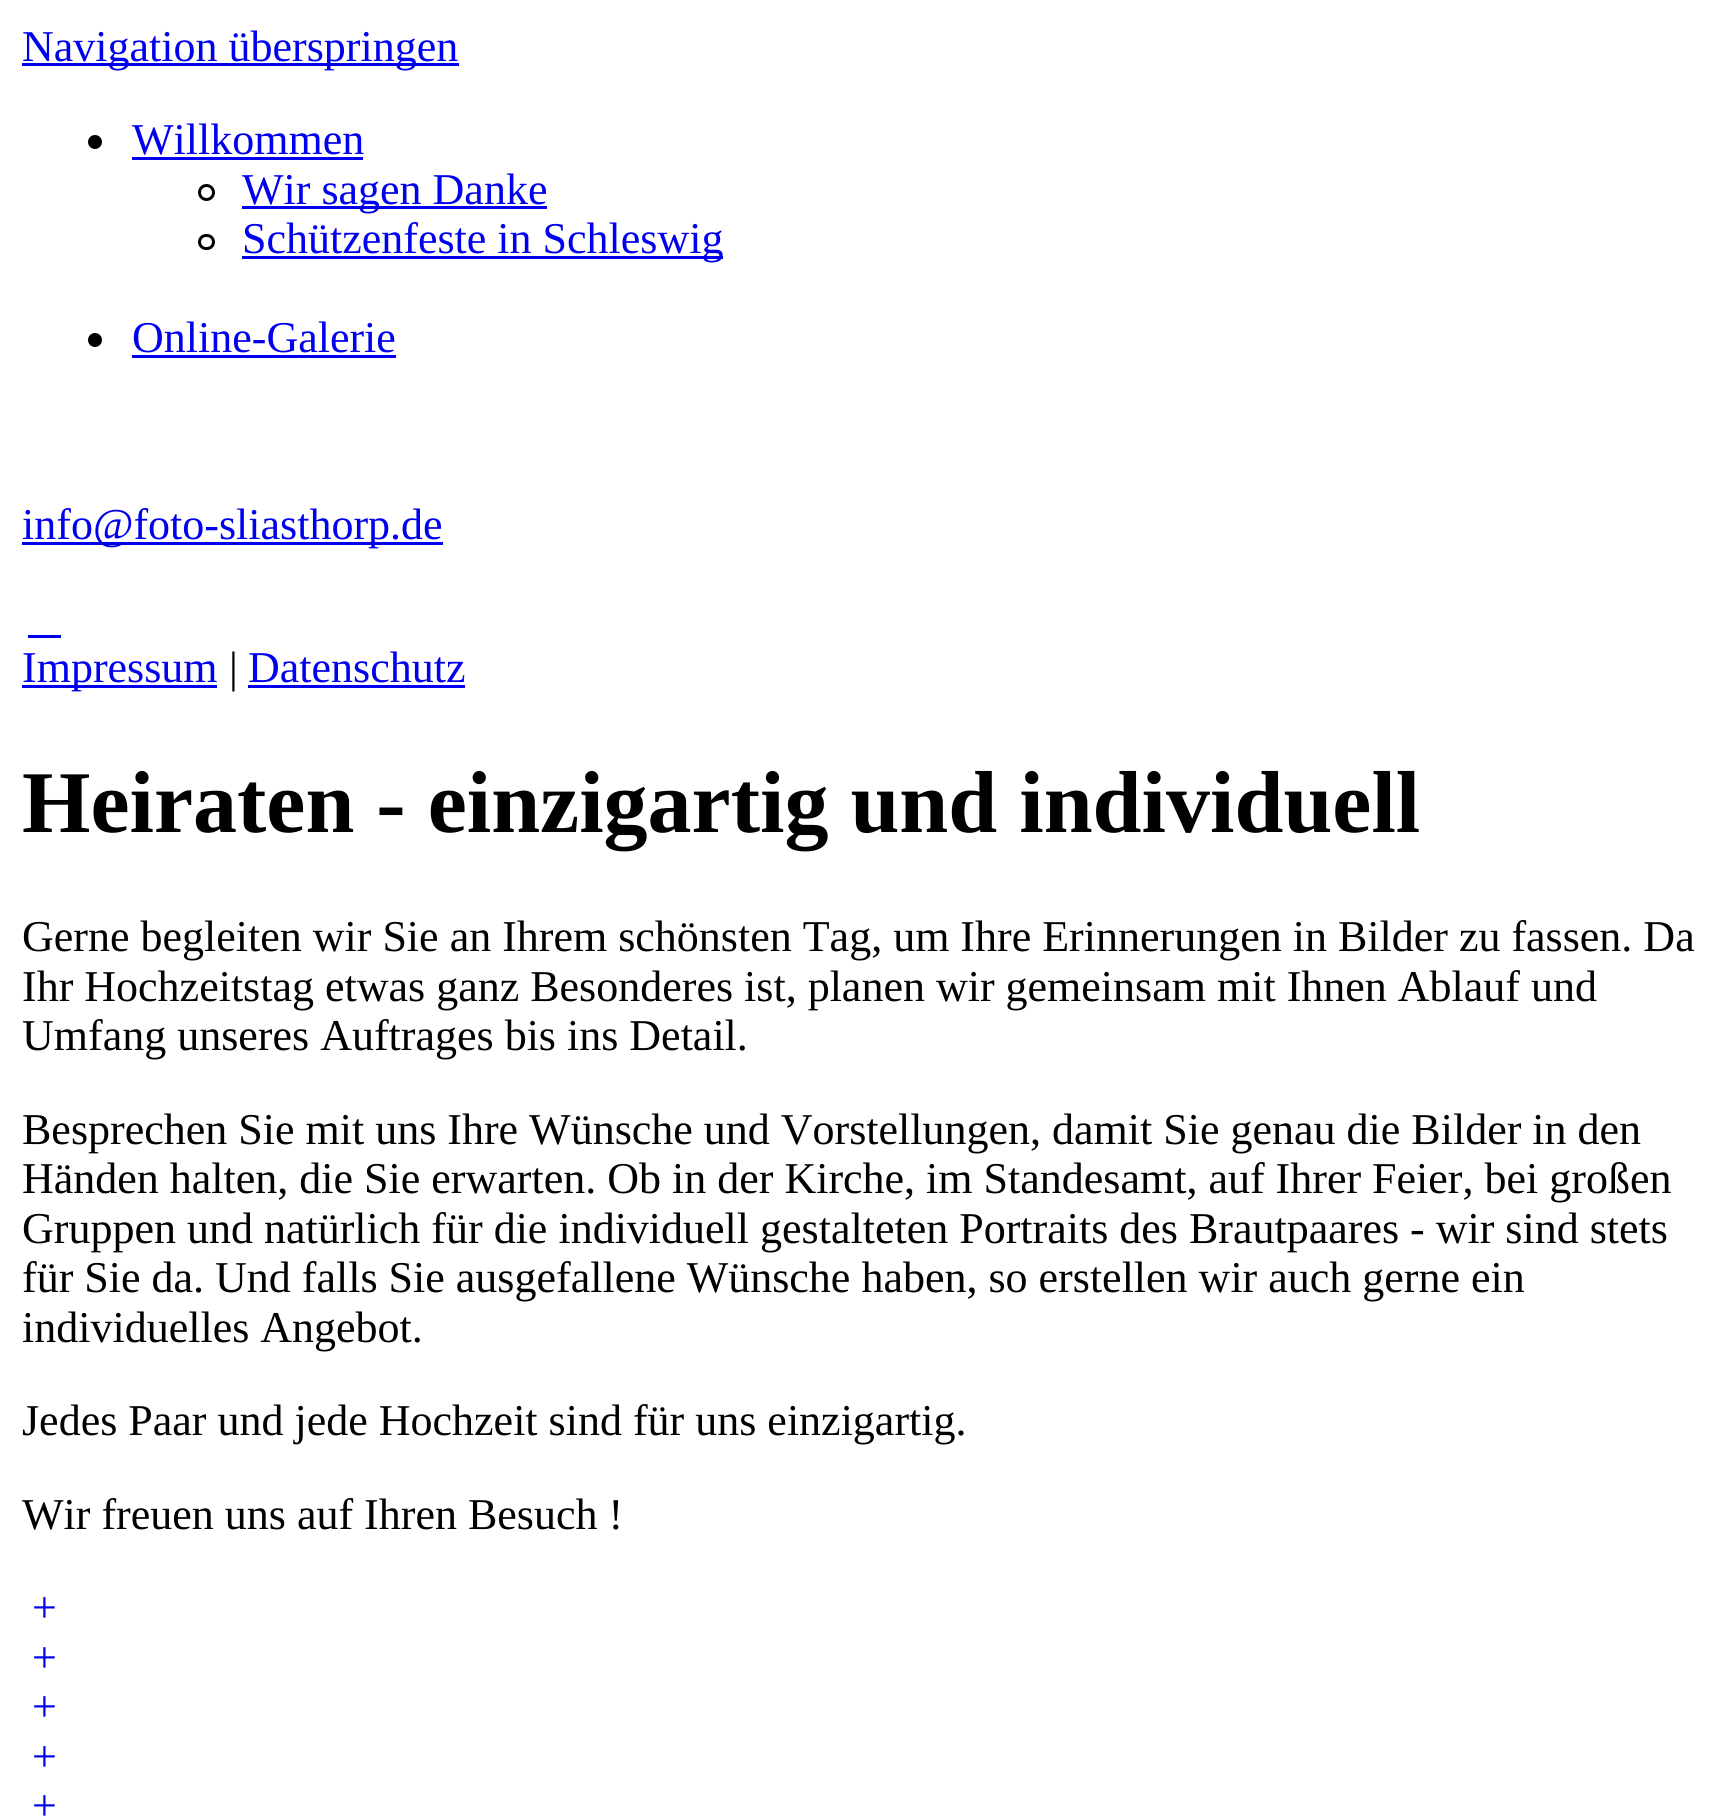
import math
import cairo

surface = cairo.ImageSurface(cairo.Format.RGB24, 1734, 1818)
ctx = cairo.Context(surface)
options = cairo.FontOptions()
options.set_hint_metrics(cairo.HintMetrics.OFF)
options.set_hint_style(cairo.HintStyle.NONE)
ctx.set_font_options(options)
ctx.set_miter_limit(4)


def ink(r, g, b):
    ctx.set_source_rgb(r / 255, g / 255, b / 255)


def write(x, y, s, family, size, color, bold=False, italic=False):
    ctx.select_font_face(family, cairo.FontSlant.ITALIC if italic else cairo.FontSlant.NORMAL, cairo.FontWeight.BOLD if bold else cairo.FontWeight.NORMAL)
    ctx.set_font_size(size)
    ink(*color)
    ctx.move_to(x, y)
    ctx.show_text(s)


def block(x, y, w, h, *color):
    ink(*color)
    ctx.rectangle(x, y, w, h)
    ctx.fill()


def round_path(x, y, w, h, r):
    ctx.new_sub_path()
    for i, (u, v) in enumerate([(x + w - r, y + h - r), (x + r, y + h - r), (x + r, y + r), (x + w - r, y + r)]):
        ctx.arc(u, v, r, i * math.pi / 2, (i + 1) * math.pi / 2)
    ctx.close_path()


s1 = dict(family="Liberation Serif", size=44, color=(0, 0, 238))
s2 = dict(family="Liberation Serif", size=44, color=(0, 0, 0))
s3 = dict(family="Liberation Serif", size=88, color=(0, 0, 0), bold=True)

ink(255, 255, 255)
ctx.paint()
block(22, 63, 437, 3, 0, 0, 238)
write(22, 61, "Navigation überspringen", **s1)
ink(0, 0, 0)
ctx.new_path()
ctx.arc(95, 142, 7, 0, 2 * math.pi)
ctx.fill()
write(132, 154, "Willkommen", **s1)
block(132, 157, 231, 3, 0, 0, 238)
ctx.new_path()
ctx.arc(206.5, 192.5, 7, 0, 2 * math.pi)
ink(0, 0, 0)
ctx.set_line_width(3)
ctx.stroke()
block(242, 206, 305, 3, 0, 0, 238)
write(242, 204, "Wir sagen Danke", **s1)
round_path(199.5, 235.5, 14, 13, 6.5)
ink(0, 0, 0)
ctx.stroke()
block(242, 256, 481, 3, 0, 0, 238)
write(242, 253, "Schützenfeste in Schleswig", **s1)
ink(0, 0, 0)
ctx.new_path()
ctx.arc(95, 340, 7, 0, 2 * math.pi)
ctx.fill()
write(132, 352, "Online-Galerie", **s1)
block(132, 355, 264, 3, 0, 0, 238)
block(22, 542, 421, 3, 0, 0, 238)
write(22, 539, "info@foto-sliasthorp.de", **s1)
block(28, 635, 33, 3, 0, 0, 238)
block(22, 685, 195, 3, 0, 0, 238)
write(22, 682, "Impressum", **s1)
write(229, 682, "|", **s2)
write(248, 682, "Datenschutz", **s1)
block(248, 685, 217, 3, 0, 0, 238)
write(22, 832, "Heiraten - einzigartig und individuell", **s3)
write(22, 951, "Gerne begleiten wir Sie an Ihrem schönsten Tag, um Ihre Erinnerungen in Bilder zu fassen. Da", **s2)
write(22, 1001, "Ihr Hochzeitstag etwas ganz Besonderes ist, planen wir gemeinsam mit Ihnen Ablauf und", **s2)
write(22, 1050, "Umfang unseres Auftrages bis ins Detail.", **s2)
write(22, 1144, "Besprechen Sie mit uns Ihre Wünsche und Vorstellungen, damit Sie genau die Bilder in den", **s2)
write(22, 1193, "Händen halten, die Sie erwarten. Ob in der Kirche, im Standesamt, auf Ihrer Feier, bei großen", **s2)
write(22, 1243, "Gruppen und natürlich für die individuell gestalteten Portraits des Brautpaares - wir sind stets", **s2)
write(22, 1292, "für Sie da. Und falls Sie ausgefallene Wünsche haben, so erstellen wir auch gerne ein", **s2)
write(22, 1342, "individuelles Angebot.", **s2)
write(22, 1435, "Jedes Paar und jede Hochzeit sind für uns einzigartig.", **s2)
write(22, 1529, "Wir freuen uns auf Ihren Besuch !", **s2)
write(32, 1622, "+", **s1)
write(32, 1672, "+", **s1)
write(32, 1721, "+", **s1)
write(32, 1771, "+", **s1)
write(32, 1820, "+", **s1)
surface.write_to_png("screenshot.png")
